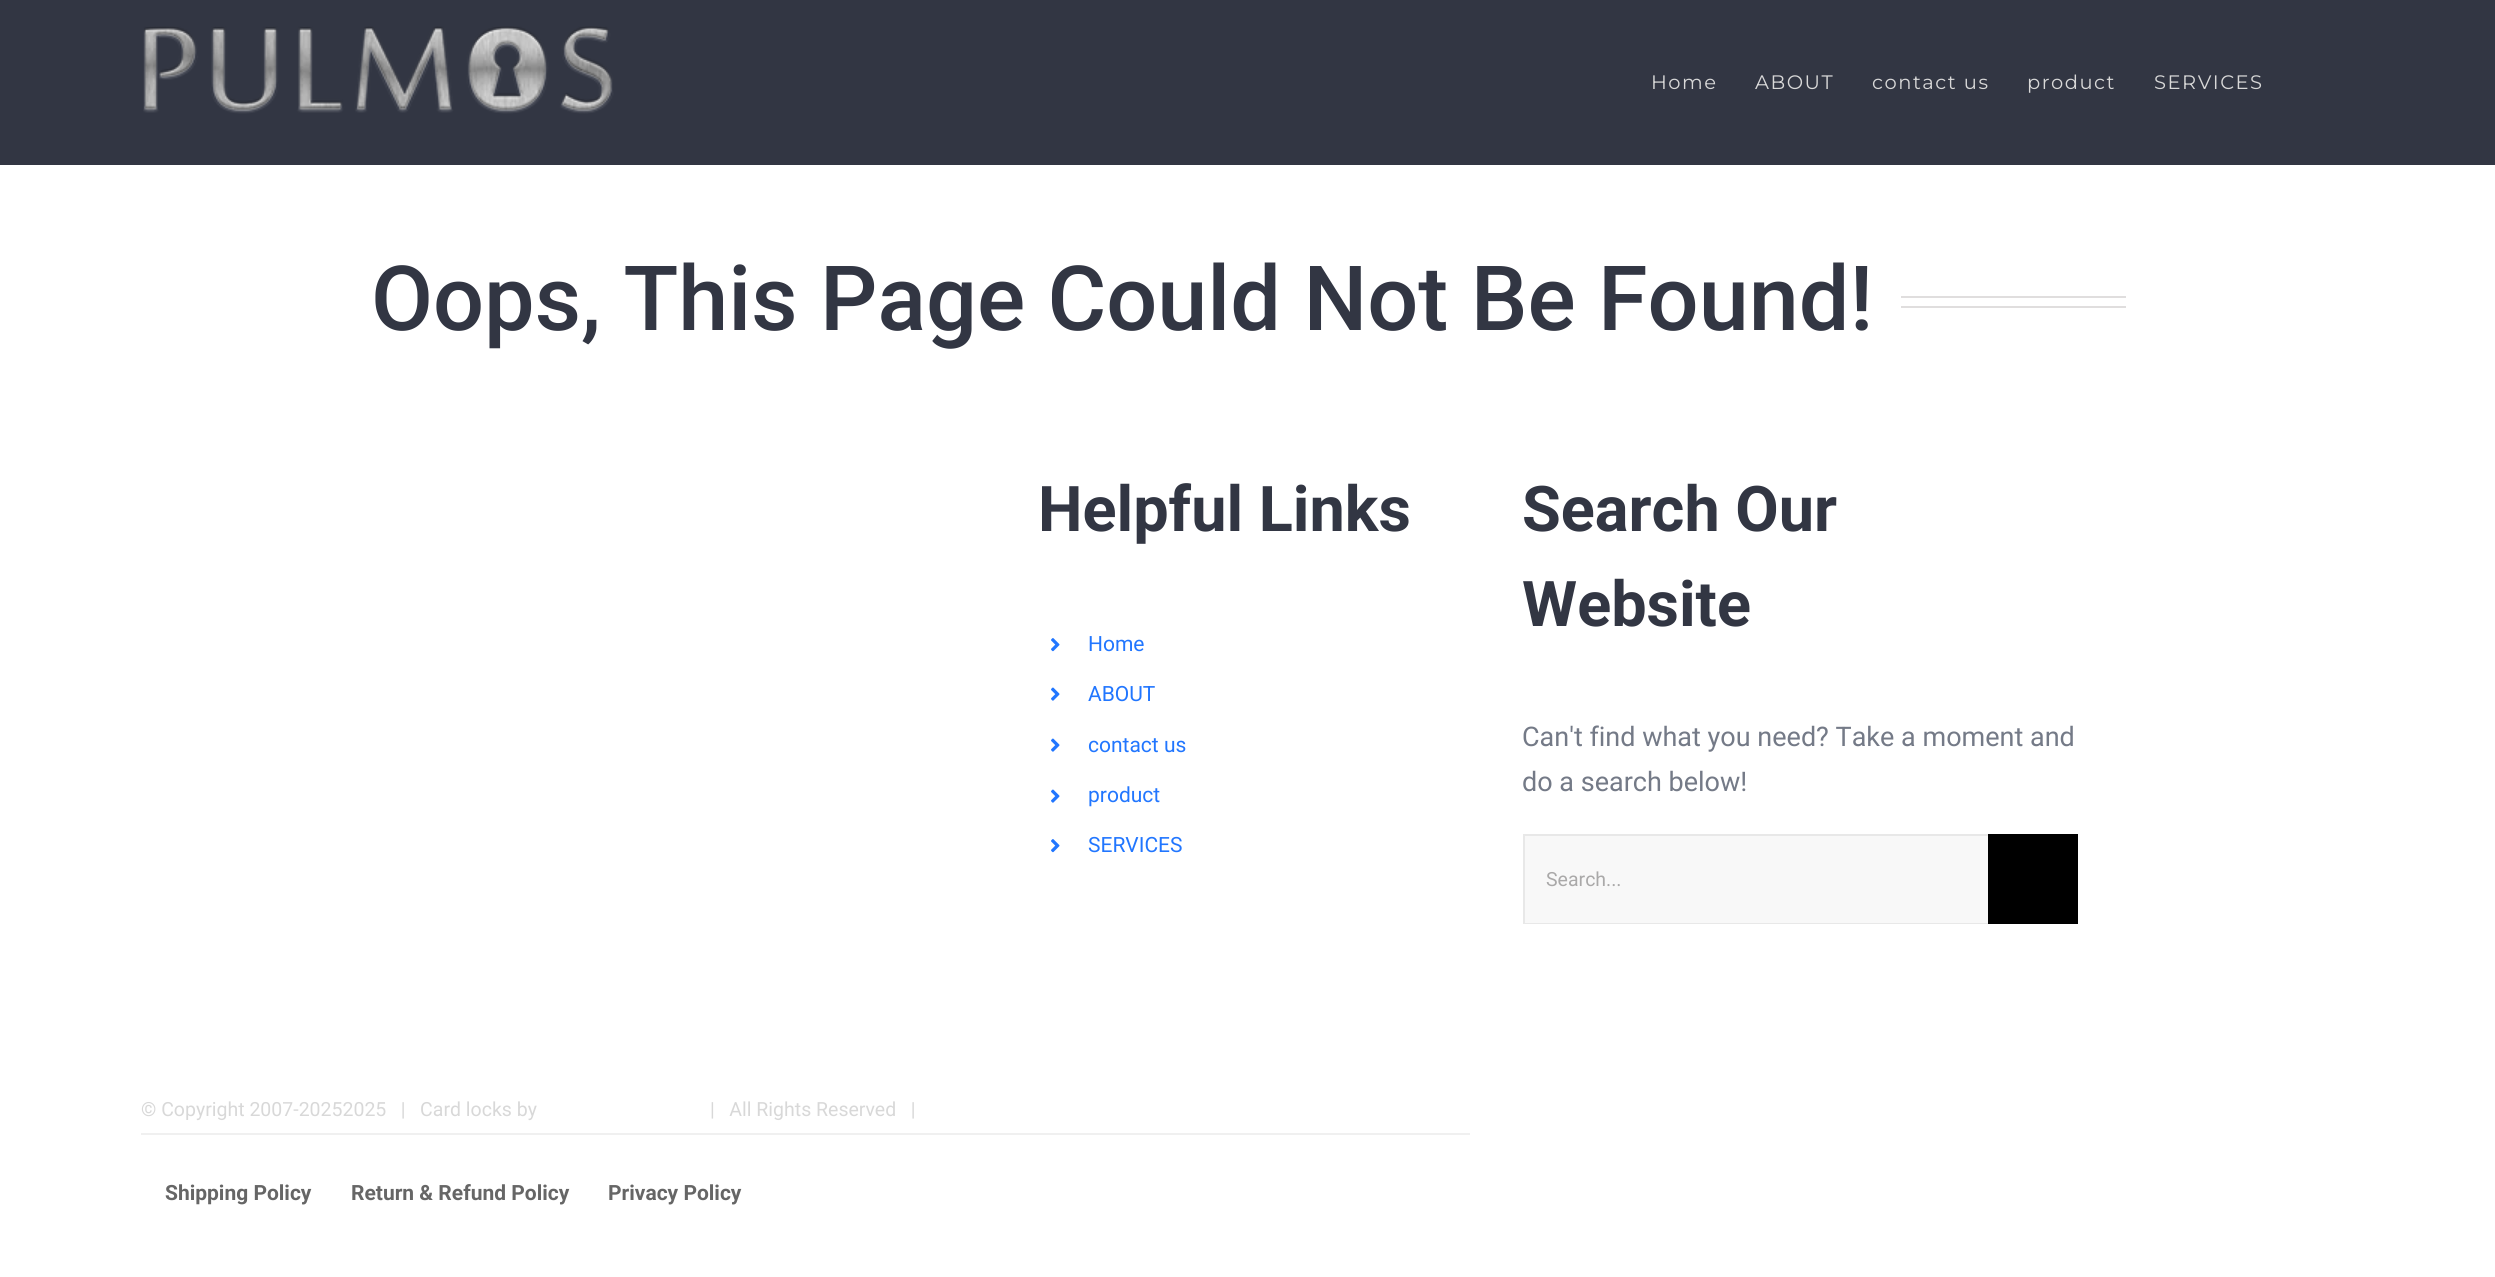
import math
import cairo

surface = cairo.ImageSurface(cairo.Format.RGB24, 2495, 1277)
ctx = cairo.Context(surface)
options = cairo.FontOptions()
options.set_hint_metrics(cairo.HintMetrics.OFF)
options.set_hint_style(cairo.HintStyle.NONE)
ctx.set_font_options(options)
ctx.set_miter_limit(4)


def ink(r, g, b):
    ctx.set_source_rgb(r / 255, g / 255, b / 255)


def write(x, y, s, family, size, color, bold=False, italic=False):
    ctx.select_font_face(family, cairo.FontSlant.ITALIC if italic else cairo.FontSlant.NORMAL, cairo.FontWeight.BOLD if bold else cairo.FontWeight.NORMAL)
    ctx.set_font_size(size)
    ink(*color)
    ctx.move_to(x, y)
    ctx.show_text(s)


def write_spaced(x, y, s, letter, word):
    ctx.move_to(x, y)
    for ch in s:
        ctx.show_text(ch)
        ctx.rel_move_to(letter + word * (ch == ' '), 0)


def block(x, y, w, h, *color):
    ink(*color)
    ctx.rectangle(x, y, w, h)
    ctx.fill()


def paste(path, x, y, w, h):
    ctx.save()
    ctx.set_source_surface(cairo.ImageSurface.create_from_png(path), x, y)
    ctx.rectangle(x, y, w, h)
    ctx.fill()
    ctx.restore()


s1 = dict(family="Roboto Medium", size=90, color=(50, 54, 67))
s2 = dict(family="Roboto", size=63, color=(50, 54, 67), bold=True)
s3 = dict(family="Roboto", size=21, color=(33, 118, 255))
s4 = dict(family="Roboto", size=27, color=(116, 122, 135))
s5 = dict(family="Roboto", size=19.5, color=(170, 169, 169))
s6 = dict(family="Roboto", size=19.5, color=(216, 216, 216))
s7 = dict(family="Roboto", size=21, color=(102, 102, 102), bold=True)

ink(255, 255, 255)
ctx.paint()
block(0, 0, 2495, 165, 50, 54, 67)
paste("pic1.png", 143, 26, 471, 88)
ctx.select_font_face("Montserrat Thin")
ctx.set_font_size(19.5)
ink(216, 216, 216)
write_spaced(1651, 89, "Home", 1.5, 0)
write_spaced(1755, 89, "ABOUT", 1.5, 0)
write_spaced(1872, 89, "contact us", 1.5, 0)
write_spaced(2027, 89, "product", 1.5, 0)
write_spaced(2154, 89, "SERVICES", 1.5, 0)
write(371, 330, "Oops, This Page Could Not Be Found!", **s1)
block(1901, 296, 225, 2, 224, 222, 222)
block(1901, 306, 225, 2, 224, 222, 222)
write(1038, 531, "Helpful Links", **s2)
paste("pic2.png", 1051, 638, 9, 14)
write(1088, 651, "Home", **s3)
paste("pic3.png", 1051, 687, 9, 14)
write(1088, 701, "ABOUT", **s3)
paste("pic3.png", 1051, 738, 9, 14)
write(1088, 752, "contact us", **s3)
paste("pic3.png", 1051, 789, 9, 14)
write(1088, 802, "product", **s3)
paste("pic2.png", 1051, 839, 9, 14)
write(1088, 852, "SERVICES", **s3)
write(1522, 531, "Search Our", **s2)
write(1522, 626, "Website", **s2)
write(1522, 746, "Can't find what you need? Take a moment and", **s4)
write(1522, 791, "do a search below!", **s4)
block(1525, 836, 463, 87, 248, 248, 248)
block(1523, 834, 465, 2, 232, 232, 232)
block(1523, 923, 465, 1, 232, 232, 232)
block(1523, 834, 2, 90, 232, 232, 232)
write(1546, 886, "Search...", **s5)
block(1988, 834, 90, 90, 0, 0, 0)
write(141, 1116, "© Copyright 2007-20252025   |   Card locks by", **s6)
write(710, 1116, "|   All Rights Reserved   |", **s6)
block(141, 1133, 1329, 2, 240, 240, 240)
write(165, 1200, "Shipping Policy", **s7)
write(351, 1200, "Return & Refund Policy", **s7)
write(608, 1200, "Privacy Policy", **s7)
surface.write_to_png("screenshot.png")
